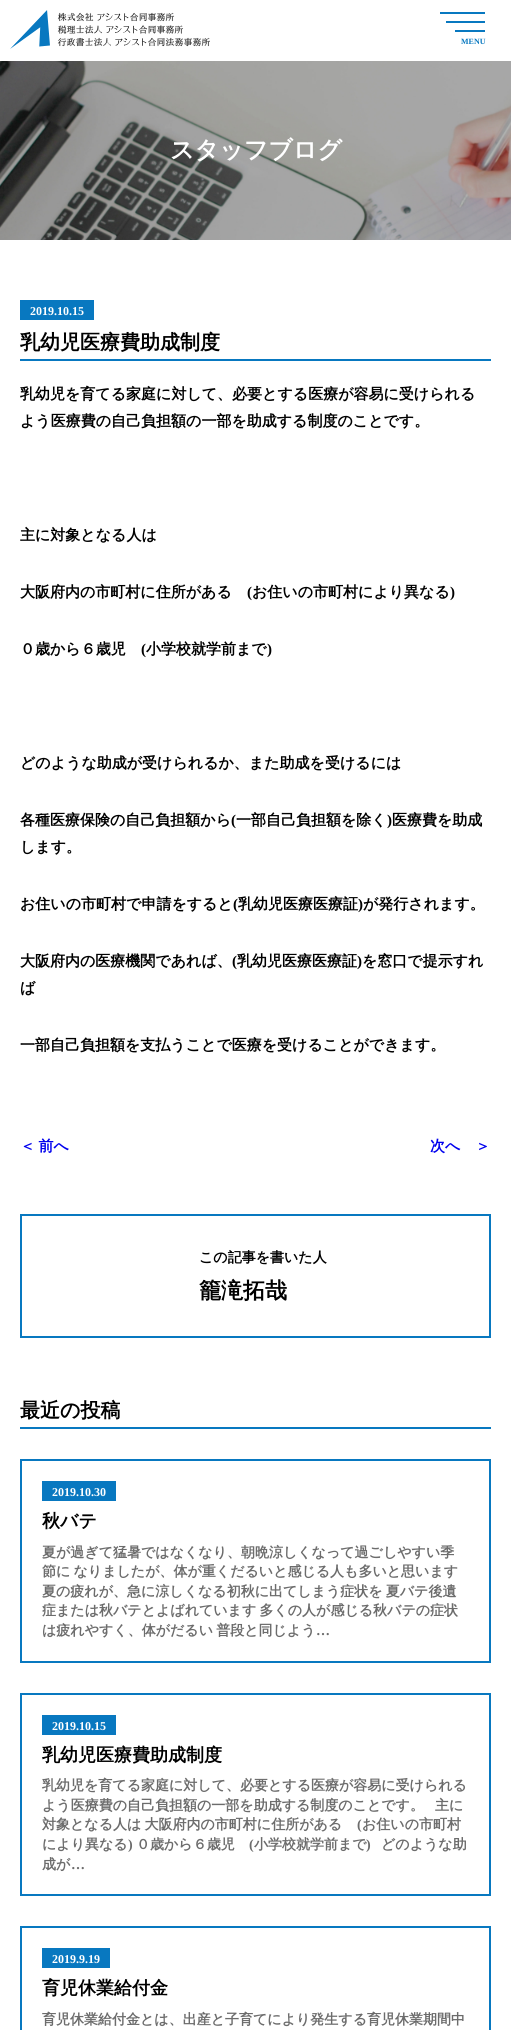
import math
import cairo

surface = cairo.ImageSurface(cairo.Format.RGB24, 511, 2030)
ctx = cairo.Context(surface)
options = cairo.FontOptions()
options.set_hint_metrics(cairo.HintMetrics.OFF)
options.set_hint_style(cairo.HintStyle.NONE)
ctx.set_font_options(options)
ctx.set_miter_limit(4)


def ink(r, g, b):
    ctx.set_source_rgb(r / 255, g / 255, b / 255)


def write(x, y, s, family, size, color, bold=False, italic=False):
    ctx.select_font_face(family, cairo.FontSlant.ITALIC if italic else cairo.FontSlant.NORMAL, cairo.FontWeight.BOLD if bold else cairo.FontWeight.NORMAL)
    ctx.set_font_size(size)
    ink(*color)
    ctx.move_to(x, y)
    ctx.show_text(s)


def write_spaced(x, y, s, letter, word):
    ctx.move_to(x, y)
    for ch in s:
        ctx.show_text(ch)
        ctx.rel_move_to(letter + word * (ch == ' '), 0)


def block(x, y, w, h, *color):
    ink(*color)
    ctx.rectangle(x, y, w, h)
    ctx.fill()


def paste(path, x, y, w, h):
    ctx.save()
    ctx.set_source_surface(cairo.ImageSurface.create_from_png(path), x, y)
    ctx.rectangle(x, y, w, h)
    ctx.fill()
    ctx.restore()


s1 = dict(family="Liberation Serif", size=8, color=(8, 120, 192), bold=True)
s2 = dict(family="WenQuanYi Zen Hei", size=24, color=(255, 255, 255), bold=True)
s3 = dict(family="Liberation Serif", size=12, color=(255, 255, 255), bold=True)
s4 = dict(family="WenQuanYi Zen Hei", size=20, color=(0, 0, 0), bold=True)
s5 = dict(family="WenQuanYi Zen Hei", size=15, color=(0, 0, 0), bold=True)
s6 = dict(family="Liberation Serif", size=15, color=(0, 0, 0), bold=True)
s7 = dict(family="WenQuanYi Zen Hei", size=15, color=(0, 0, 238), bold=True)
s8 = dict(family="WenQuanYi Zen Hei", size=14, color=(0, 0, 0), bold=True)
s9 = dict(family="WenQuanYi Zen Hei", size=22, color=(0, 0, 0), bold=True)
s10 = dict(family="WenQuanYi Zen Hei", size=18, color=(0, 0, 0), bold=True)
s11 = dict(family="WenQuanYi Zen Hei", size=14, color=(108, 108, 108), bold=True)
s12 = dict(family="Liberation Serif", size=14, color=(108, 108, 108), bold=True)

ink(255, 255, 255)
ctx.paint()
paste("pic1.png", 10, 10, 200, 39)
block(440, 12, 45, 2, 8, 120, 192)
block(446, 21, 39, 2, 8, 120, 192)
block(455, 30, 30, 2, 8, 120, 192)
write(461, 44, "MENU", **s1)
paste("pic2.png", 0, 61, 511, 179)
write(170, 158, "スタッフブログ", **s2)
block(20, 300, 74, 20, 8, 120, 192)
write(30, 315, "2019.10.15", **s3)
block(20, 359, 471, 2, 8, 120, 192)
write(20, 349, "乳幼児医療費助成制度", **s4)
write(20, 399, "乳幼児を育てる家庭に対して、必要とする医療が容易に受けられる", **s5)
write(20, 426, "よう医療費の自己負担額の一部を助成する制度のことです。", **s5)
write(20, 540, "主に対象となる人は", **s5)
write(20, 597, "大阪府内の市町村に住所がある", **s5)
write(247, 597, "(", **s6)
write(252, 597, "お住いの市町村により異なる", **s5)
write(450, 597, ")", **s6)
write(20, 654, "０歳から６歳児", **s5)
write(141, 654, "(", **s6)
write(146, 654, "小学校就学前まで", **s5)
write(267, 654, ")", **s6)
write(20, 768, "どのような助成が受けられるか、また助成を受けるには", **s5)
write(20, 825, "各種医療保険の自己負担額から", **s5)
write(231, 825, "(", **s6)
write(236, 825, "一部自己負担額を除く", **s5)
write(387, 825, ")", **s6)
write(392, 825, "医療費を助成", **s5)
write(20, 852, "します。", **s5)
write(20, 909, "お住いの市町村で申請をすると", **s5)
write(233, 909, "(", **s6)
write(238, 909, "乳幼児医療医療証", **s5)
write(358, 909, ")", **s6)
write(363, 909, "が発行されます。", **s5)
write(20, 966, "大阪府内の医療機関であれば、", **s5)
write(232, 966, "(", **s6)
write(237, 966, "乳幼児医療医療証", **s5)
write(357, 966, ")", **s6)
write(362, 966, "を窓口で提示すれ", **s5)
write(20, 993, "ば", **s5)
write(20, 1050, "一部自己負担額を支払うことで医療を受けることができます。", **s5)
ink(0, 0, 238)
write_spaced(20, 1151, "＜ 前へ", 0, -1)
write(430, 1151, "次へ　＞", **s7)
ctx.rectangle(21, 1215, 469, 122)
ink(8, 120, 192)
ctx.stroke()
write(199, 1262, "この記事を書いた人", **s8)
write(199, 1298, "籠滝拓哉", **s9)
block(20, 1427, 471, 2, 8, 120, 192)
write(20, 1417, "最近の投稿", **s4)
ctx.rectangle(21, 1460, 469, 202)
ink(8, 120, 192)
ctx.stroke()
block(42, 1481, 74, 20, 8, 120, 192)
write(52, 1496, "2019.10.30", **s3)
write(42, 1527, "秋バテ", **s10)
write(42, 1557, "夏が過ぎて猛暑ではなくなり、朝晩涼しくなって過ごしやすい季", **s11)
write_spaced(42, 1576, "節に なりましたが、体が重くだるいと感じる人も多いと思います", 0, -1)
write_spaced(42, 1596, "夏の疲れが、急に涼しくなる初秋に出てしまう症状を 夏バテ後遺", 0, -1)
write_spaced(42, 1615, "症または秋バテとよばれています 多くの人が感じる秋バテの症状", 0, -1)
write_spaced(42, 1635, "は疲れやすく、体がだるい 普段と同じよう", 0, -1)
write(316, 1635, "…", **s12)
ctx.rectangle(21, 1694, 469, 201)
ink(8, 120, 192)
ctx.stroke()
block(42, 1715, 74, 20, 8, 120, 192)
write(52, 1730, "2019.10.15", **s3)
write(42, 1761, "乳幼児医療費助成制度", **s10)
write(42, 1790, "乳幼児を育てる家庭に対して、必要とする医療が容易に受けられる", **s11)
write(42, 1810, "よう医療費の自己負担額の一部を助成する制度のことです。", **s11)
write(435, 1810, "主に", **s11)
write_spaced(42, 1829, "対象となる人は 大阪府内の市町村に住所がある", 0, -1)
write(357, 1829, "(", **s12)
write(362, 1829, "お住いの市町村", **s11)
write(42, 1849, "により異なる", **s11)
write(128, 1849, ")", **s12)
write(136, 1849, "０歳から６歳児", **s11)
write(249, 1849, "(", **s12)
write(254, 1849, "小学校就学前まで", **s11)
write(366, 1849, ")", **s12)
write(381, 1849, "どのような助", **s11)
write(42, 1869, "成が", **s11)
write(71, 1869, "…", **s12)
ctx.rectangle(21, 1927, 469, 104)
ink(8, 120, 192)
ctx.stroke()
block(42, 1948, 68, 20, 8, 120, 192)
write(52, 1963, "2019.9.19", **s3)
write(42, 1994, "育児休業給付金", **s10)
write(42, 2024, "育児休業給付金とは、出産と子育てにより発生する育児休業期間中", **s11)
surface.write_to_png("screenshot.png")
